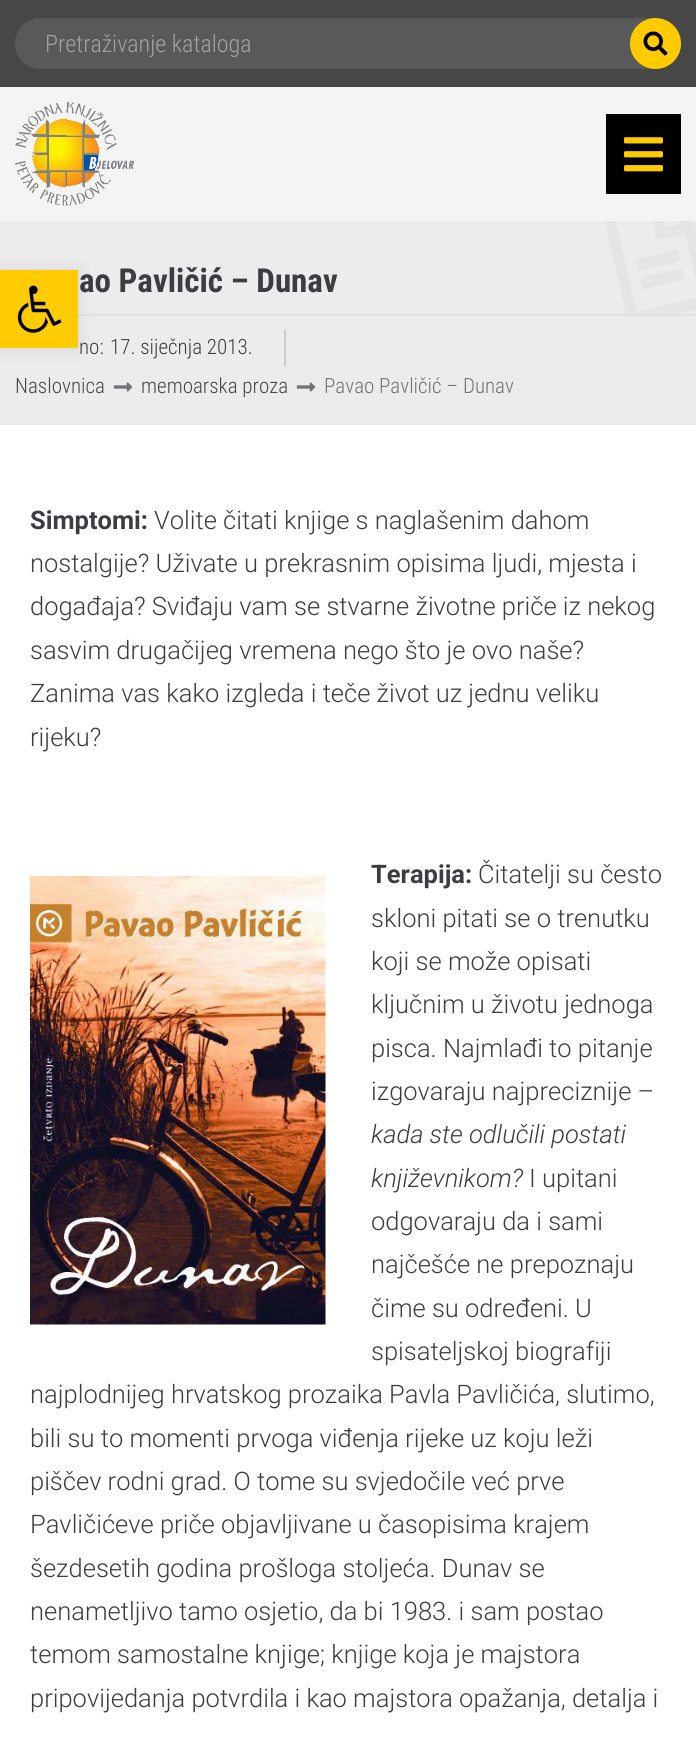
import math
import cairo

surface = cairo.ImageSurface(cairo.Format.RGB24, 696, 1742)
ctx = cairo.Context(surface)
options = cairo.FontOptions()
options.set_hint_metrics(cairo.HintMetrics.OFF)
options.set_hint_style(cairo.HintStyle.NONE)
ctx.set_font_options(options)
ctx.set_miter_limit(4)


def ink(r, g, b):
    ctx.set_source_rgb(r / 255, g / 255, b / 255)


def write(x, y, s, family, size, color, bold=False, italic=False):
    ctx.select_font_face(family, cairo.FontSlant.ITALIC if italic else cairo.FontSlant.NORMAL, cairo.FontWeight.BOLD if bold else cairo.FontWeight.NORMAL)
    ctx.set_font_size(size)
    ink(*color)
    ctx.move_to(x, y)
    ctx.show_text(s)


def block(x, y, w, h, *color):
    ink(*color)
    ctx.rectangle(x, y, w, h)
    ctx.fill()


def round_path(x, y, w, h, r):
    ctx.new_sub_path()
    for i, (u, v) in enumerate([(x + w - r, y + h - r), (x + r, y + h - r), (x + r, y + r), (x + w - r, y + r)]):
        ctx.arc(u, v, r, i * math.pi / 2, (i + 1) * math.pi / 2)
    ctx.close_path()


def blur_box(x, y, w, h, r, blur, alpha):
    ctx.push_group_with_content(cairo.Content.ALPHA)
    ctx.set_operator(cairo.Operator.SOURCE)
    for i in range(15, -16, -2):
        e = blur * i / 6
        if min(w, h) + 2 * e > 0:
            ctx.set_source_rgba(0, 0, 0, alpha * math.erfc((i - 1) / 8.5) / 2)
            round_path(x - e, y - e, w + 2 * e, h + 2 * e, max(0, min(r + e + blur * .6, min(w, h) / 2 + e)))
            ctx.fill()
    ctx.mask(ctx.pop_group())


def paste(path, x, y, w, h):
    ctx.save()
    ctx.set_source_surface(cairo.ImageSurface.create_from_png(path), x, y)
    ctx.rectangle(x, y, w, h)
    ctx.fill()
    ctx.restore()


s1 = dict(family="Roboto Condensed Light", size=24, color=(161, 162, 164))
s2 = dict(family="Roboto Condensed", size=33, color=(59, 61, 66), bold=True)
s3 = dict(family="Roboto Condensed Light", size=21, color=(59, 61, 66))
s4 = dict(family="Roboto Condensed Light", size=21, color=(71, 71, 71))
s5 = dict(family="Roboto Condensed Light", size=21, color=(112, 114, 117))
s6 = dict(family="Roboto", size=25.5, color=(59, 61, 66), bold=True)
s7 = dict(family="Roboto Light", size=25.5, color=(59, 61, 66))
s8 = dict(family="Roboto Light", size=25.5, color=(59, 61, 66), italic=True)

ink(255, 255, 255)
ctx.paint()
block(0, 0, 696, 87, 71, 71, 71)
ink(89, 89, 89)
round_path(15, 18, 666, 51, 25.5)
ctx.fill()
write(45, 52, "Pretraživanje kataloga", **s1)
ink(255, 202, 0)
ctx.new_path()
ctx.arc(655.5, 43.5, 25.5, 0, 2 * math.pi)
ctx.fill()
paste("pic1.png", 643, 31, 25, 25)
block(0, 87, 696, 134, 244, 244, 244)
paste("pic2.png", 15, 102, 119, 104)
block(606, 114, 75, 80, 0, 0, 0)
paste("pic3.png", 624, 137, 39, 35)
block(0, 221, 696, 93, 236, 236, 236)
write(79, 292, "ao Pavličić – Dunav", **s2)
paste("pic4.png", 605, 221, 91, 93)
block(0, 316, 696, 109, 236, 236, 236)
block(78, 314, 618, 2, 224, 224, 224)
block(284, 330, 2, 36, 203, 203, 203)
write(79, 354, "no:", **s3)
write(110, 354, "17. siječnja 2013.", **s3)
write(15, 393, "Naslovnica", **s4)
paste("pic5.png", 113, 382, 20, 10)
write(141, 393, "memoarska proza", **s4)
paste("pic5.png", 296, 382, 20, 10)
write(324, 393, "Pavao Pavličić – Dunav", **s5)
write(30, 529, "Simptomi:", **s6)
write(154, 529, "Volite čitati knjige s naglašenim dahom", **s7)
write(30, 572, "nostalgije? Uživate u prekrasnim opisima ljudi, mjesta i", **s7)
write(30, 615, "događaja? Sviđaju vam se stvarne životne priče iz nekog", **s7)
write(30, 659, "sasvim drugačijeg vremena nego što je ovo naše?", **s7)
write(30, 702, "Zanima vas kako izgleda i teče život uz jednu veliku", **s7)
write(30, 746, "rijeku?", **s7)
paste("pic6.png", 30, 876, 296, 449)
write(371, 883, "Terapija:", **s6)
write(478, 883, "Čitatelji su često", **s7)
write(371, 927, "skloni pitati se o trenutku", **s7)
write(371, 970, "koji se može opisati", **s7)
write(371, 1013, "ključnim u životu jednoga", **s7)
write(371, 1057, "pisca. Najmlađi to pitanje", **s7)
write(371, 1100, "izgovaraju najpreciznije –", **s7)
write(371, 1143, "kada ste odlučili postati", **s8)
write(371, 1187, "književnikom?", **s8)
write(529, 1187, "I upitani", **s7)
write(371, 1230, "odgovaraju da i sami", **s7)
write(371, 1273, "najčešće ne prepoznaju", **s7)
write(371, 1317, "čime su određeni. U", **s7)
write(371, 1360, "spisateljskoj biografiji", **s7)
write(30, 1403, "najplodnijeg hrvatskog prozaika Pavla Pavličića, slutimo,", **s7)
write(30, 1447, "bili su to momenti prvoga viđenja rijeke uz koju leži", **s7)
write(30, 1490, "piščev rodni grad. O tome su svjedočile već prve", **s7)
write(30, 1533, "Pavličićeve priče objavljivane u časopisima krajem", **s7)
write(30, 1577, "šezdesetih godina prošloga stoljeća. Dunav se", **s7)
write(30, 1620, "nenametljivo tamo osjetio, da bi 1983. i sam postao", **s7)
write(30, 1663, "temom samostalne knjige; knjige koja je majstora", **s7)
write(30, 1707, "pripovijedanja potvrdila i kao majstora opažanja, detalja i", **s7)
ink(0, 0, 0)
blur_box(0, 270, 78, 78, 0, 7.5, 0.1)
block(0, 270, 78, 78, 255, 204, 2)
paste("pic7.png", 17, 285, 45, 48)
surface.write_to_png("screenshot.png")
